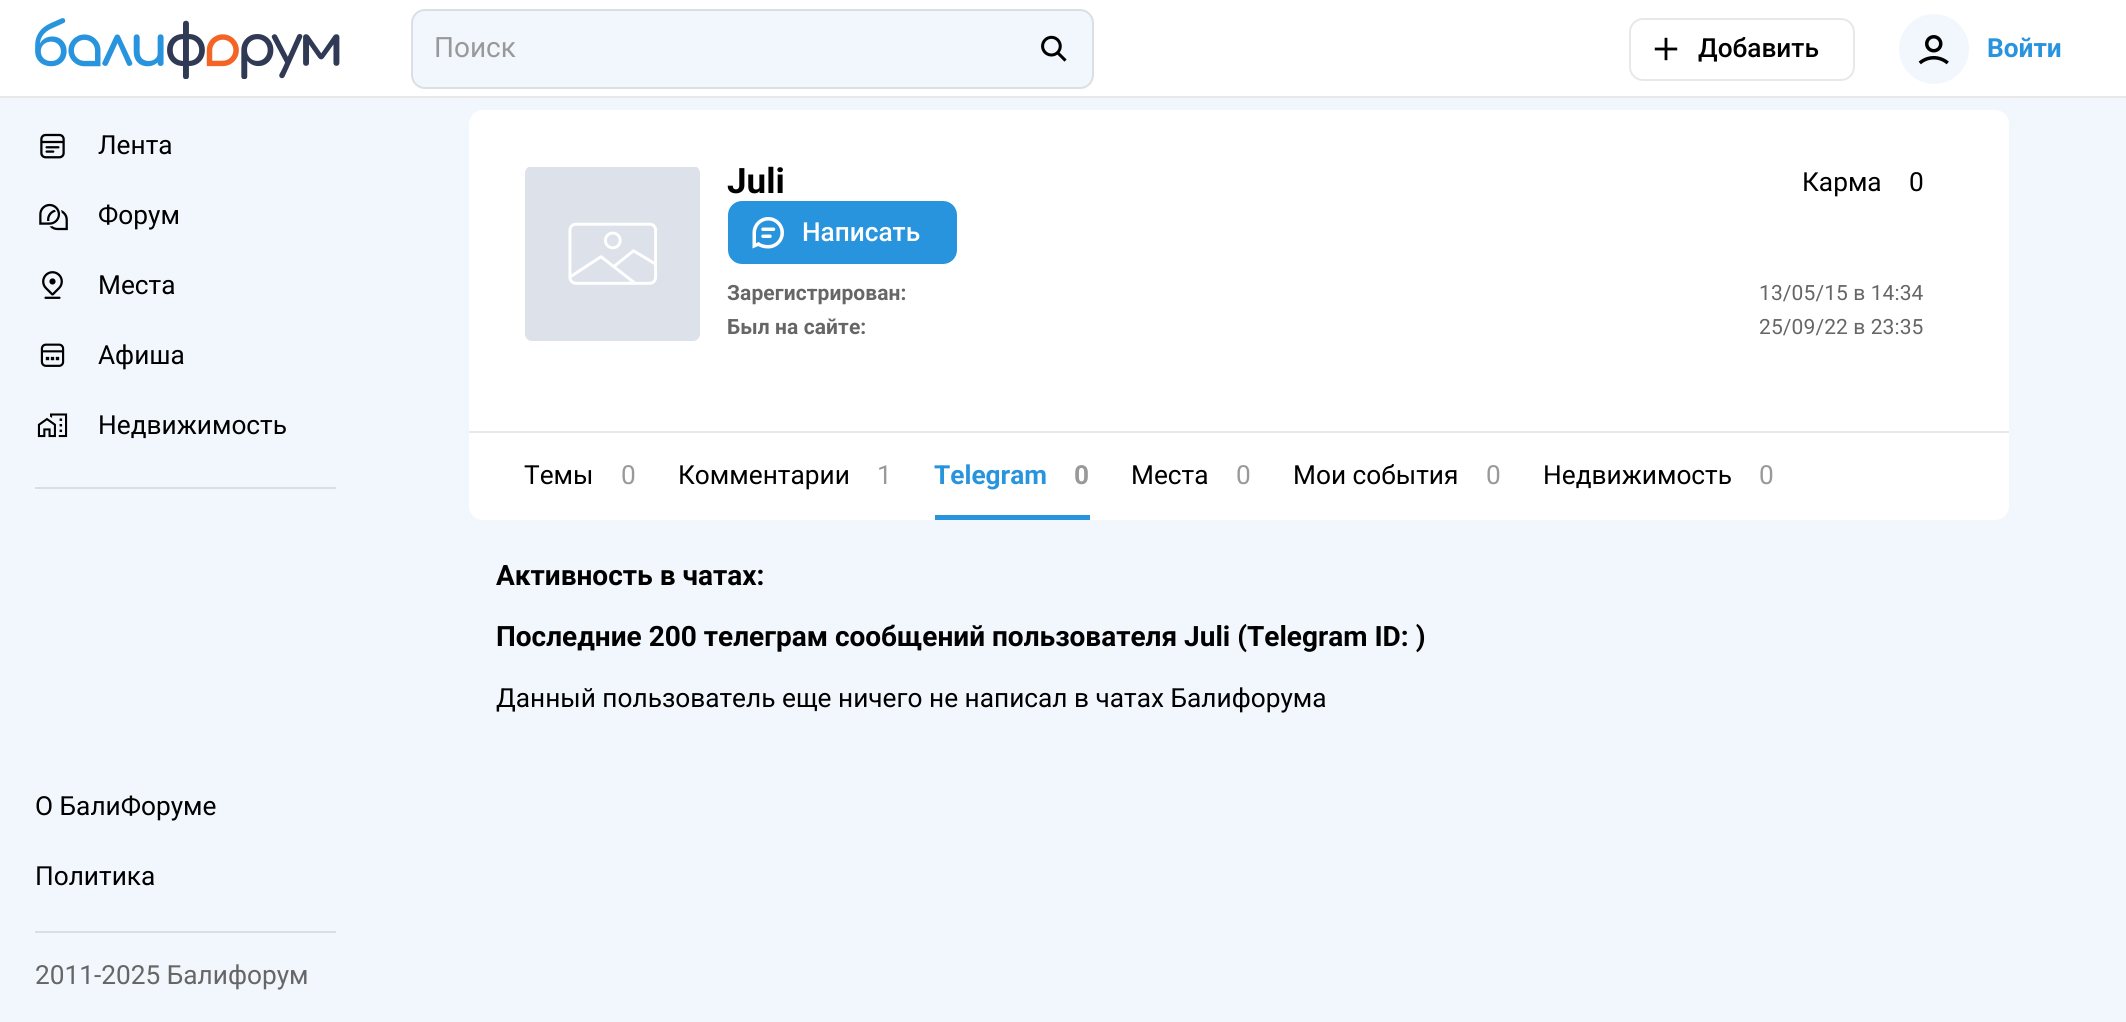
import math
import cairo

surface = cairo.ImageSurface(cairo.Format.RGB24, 2126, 1022)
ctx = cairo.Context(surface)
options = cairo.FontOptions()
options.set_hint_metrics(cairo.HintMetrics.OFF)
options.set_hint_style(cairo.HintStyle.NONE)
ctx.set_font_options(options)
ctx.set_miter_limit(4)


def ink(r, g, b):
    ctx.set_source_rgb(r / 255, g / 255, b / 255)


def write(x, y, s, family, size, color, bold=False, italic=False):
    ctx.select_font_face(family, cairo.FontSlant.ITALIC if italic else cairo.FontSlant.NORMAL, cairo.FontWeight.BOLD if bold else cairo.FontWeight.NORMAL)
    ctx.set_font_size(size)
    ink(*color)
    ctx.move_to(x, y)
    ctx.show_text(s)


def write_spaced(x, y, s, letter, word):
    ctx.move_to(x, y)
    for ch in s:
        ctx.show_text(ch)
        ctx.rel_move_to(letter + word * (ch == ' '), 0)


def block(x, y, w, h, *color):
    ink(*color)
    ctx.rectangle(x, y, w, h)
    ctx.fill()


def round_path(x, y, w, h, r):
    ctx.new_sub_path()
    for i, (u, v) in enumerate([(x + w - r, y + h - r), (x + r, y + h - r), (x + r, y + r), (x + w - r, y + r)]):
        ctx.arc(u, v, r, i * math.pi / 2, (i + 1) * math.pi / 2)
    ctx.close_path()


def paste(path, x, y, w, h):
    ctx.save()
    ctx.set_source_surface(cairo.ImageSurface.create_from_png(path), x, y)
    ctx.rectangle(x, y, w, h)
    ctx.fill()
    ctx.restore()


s1 = dict(family="Roboto", size=28, color=(153, 153, 153))
s2 = dict(family="Roboto Medium", size=26.25, color=(0, 0, 0))
s3 = dict(family="Roboto", size=26.25, color=(40, 148, 221), bold=True)
s4 = dict(family="Roboto", size=26.25, color=(0, 0, 0))
s5 = dict(family="Roboto", size=26.25, color=(102, 102, 102))
s6 = dict(family="Roboto", size=35, color=(0, 0, 0), bold=True)
s7 = dict(family="Roboto Medium", size=26.25, color=(255, 255, 255))
s8 = dict(family="Roboto", size=26.25, color=(153, 153, 153))
s9 = dict(family="Roboto", size=26.25, color=(153, 153, 153), bold=True)
s10 = dict(family="Roboto", size=28, color=(0, 0, 0), bold=True)

ink(241, 247, 252)
ctx.paint()
block(0, 0, 2126, 96, 255, 255, 255)
block(0, 96, 2126, 2, 232, 232, 232)
paste("pic1.png", 35, 18, 305, 61)
ink(241, 247, 252)
round_path(411, 9, 683, 80, 14)
ctx.fill()
round_path(412, 10, 681, 78, 13)
ctx.set_source_rgba(0, 0, 0, 0.1)
ctx.stroke()
write(434, 57, "Поиск", **s1)
paste("pic2.png", 1041, 35, 26, 27)
round_path(1630, 19, 224, 61, 13)
ink(232, 232, 232)
ctx.stroke()
paste("pic3.png", 1654, 37, 24, 24)
write(1698, 57, "Добавить", **s2)
ink(241, 247, 252)
ctx.new_path()
ctx.arc(1934, 49, 35, 0, 2 * math.pi)
ctx.fill()
paste("pic4.png", 1918, 35, 31, 30)
write(1987, 57, "Войти", **s3)
paste("pic5.png", 40, 133, 25, 26)
write(98, 154, "Лента", **s4)
paste("pic6.png", 39, 203, 29, 28)
write(98, 224, "Форум", **s4)
paste("pic7.png", 42, 271, 21, 28)
write(98, 294, "Места", **s4)
paste("pic8.png", 40, 343, 25, 24)
write(98, 364, "Афиша", **s4)
paste("pic9.png", 37, 413, 31, 25)
write(98, 434, "Недвижимость", **s4)
block(35, 487, 301, 2, 217, 222, 227)
write(35, 815, "О БалиФоруме", **s4)
write(35, 885, "Политика", **s4)
block(35, 931, 301, 2, 217, 222, 227)
write(35, 984, "2011-2025 Балифорум", **s5)
ink(255, 255, 255)
round_path(469, 110, 1540, 410, 14)
ctx.fill()
paste("pic10.png", 525, 167, 175, 174)
write(727, 193, "Juli", **s6)
write(1802, 191, "Карма", **s4)
write(1909, 191, "0", **s4)
ink(40, 148, 221)
round_path(729, 202, 227, 61, 13)
ctx.fill_preserve()
ctx.stroke()
paste("pic11.png", 752, 217, 32, 32)
write(802, 241, "Написать", **s7)
ctx.select_font_face("Roboto", cairo.FontSlant.NORMAL, cairo.FontWeight.BOLD)
ctx.set_font_size(21)
ink(102, 102, 102)
write_spaced(727, 300, "Зарегистрирован:", 0.1, 0)
ctx.select_font_face("Roboto")
write_spaced(1759, 300, "13/05/15 в 14:34", 0.1, 0)
ctx.select_font_face("Roboto", cairo.FontSlant.NORMAL, cairo.FontWeight.BOLD)
write_spaced(727, 334, "Был на сайте:", 0.1, 0)
ctx.select_font_face("Roboto")
write_spaced(1759, 334, "25/09/22 в 23:35", 0.1, 0)
block(469, 431, 1540, 2, 232, 232, 232)
write(524, 484, "Темы", **s4)
write(621, 484, "0", **s8)
write(678, 484, "Комментарии", **s4)
write(877, 484, "1", **s8)
block(935, 515, 155, 5, 40, 148, 221)
write(934, 484, "Telegram", **s3)
write(1074, 484, "0", **s9)
write(1131, 484, "Места", **s4)
write(1236, 484, "0", **s8)
write(1293, 484, "Мои события", **s4)
write(1486, 484, "0", **s8)
write(1543, 484, "Недвижимость", **s4)
write(1759, 484, "0", **s8)
write(496, 585, "Активность в чатах:", **s10)
write(496, 646, "Последние 200 телеграм сообщений пользователя Juli (Telegram ID: )", **s10)
write(496, 707, "Данный пользователь еще ничего не написал в чатах Балифорума", **s4)
surface.write_to_png("screenshot.png")
